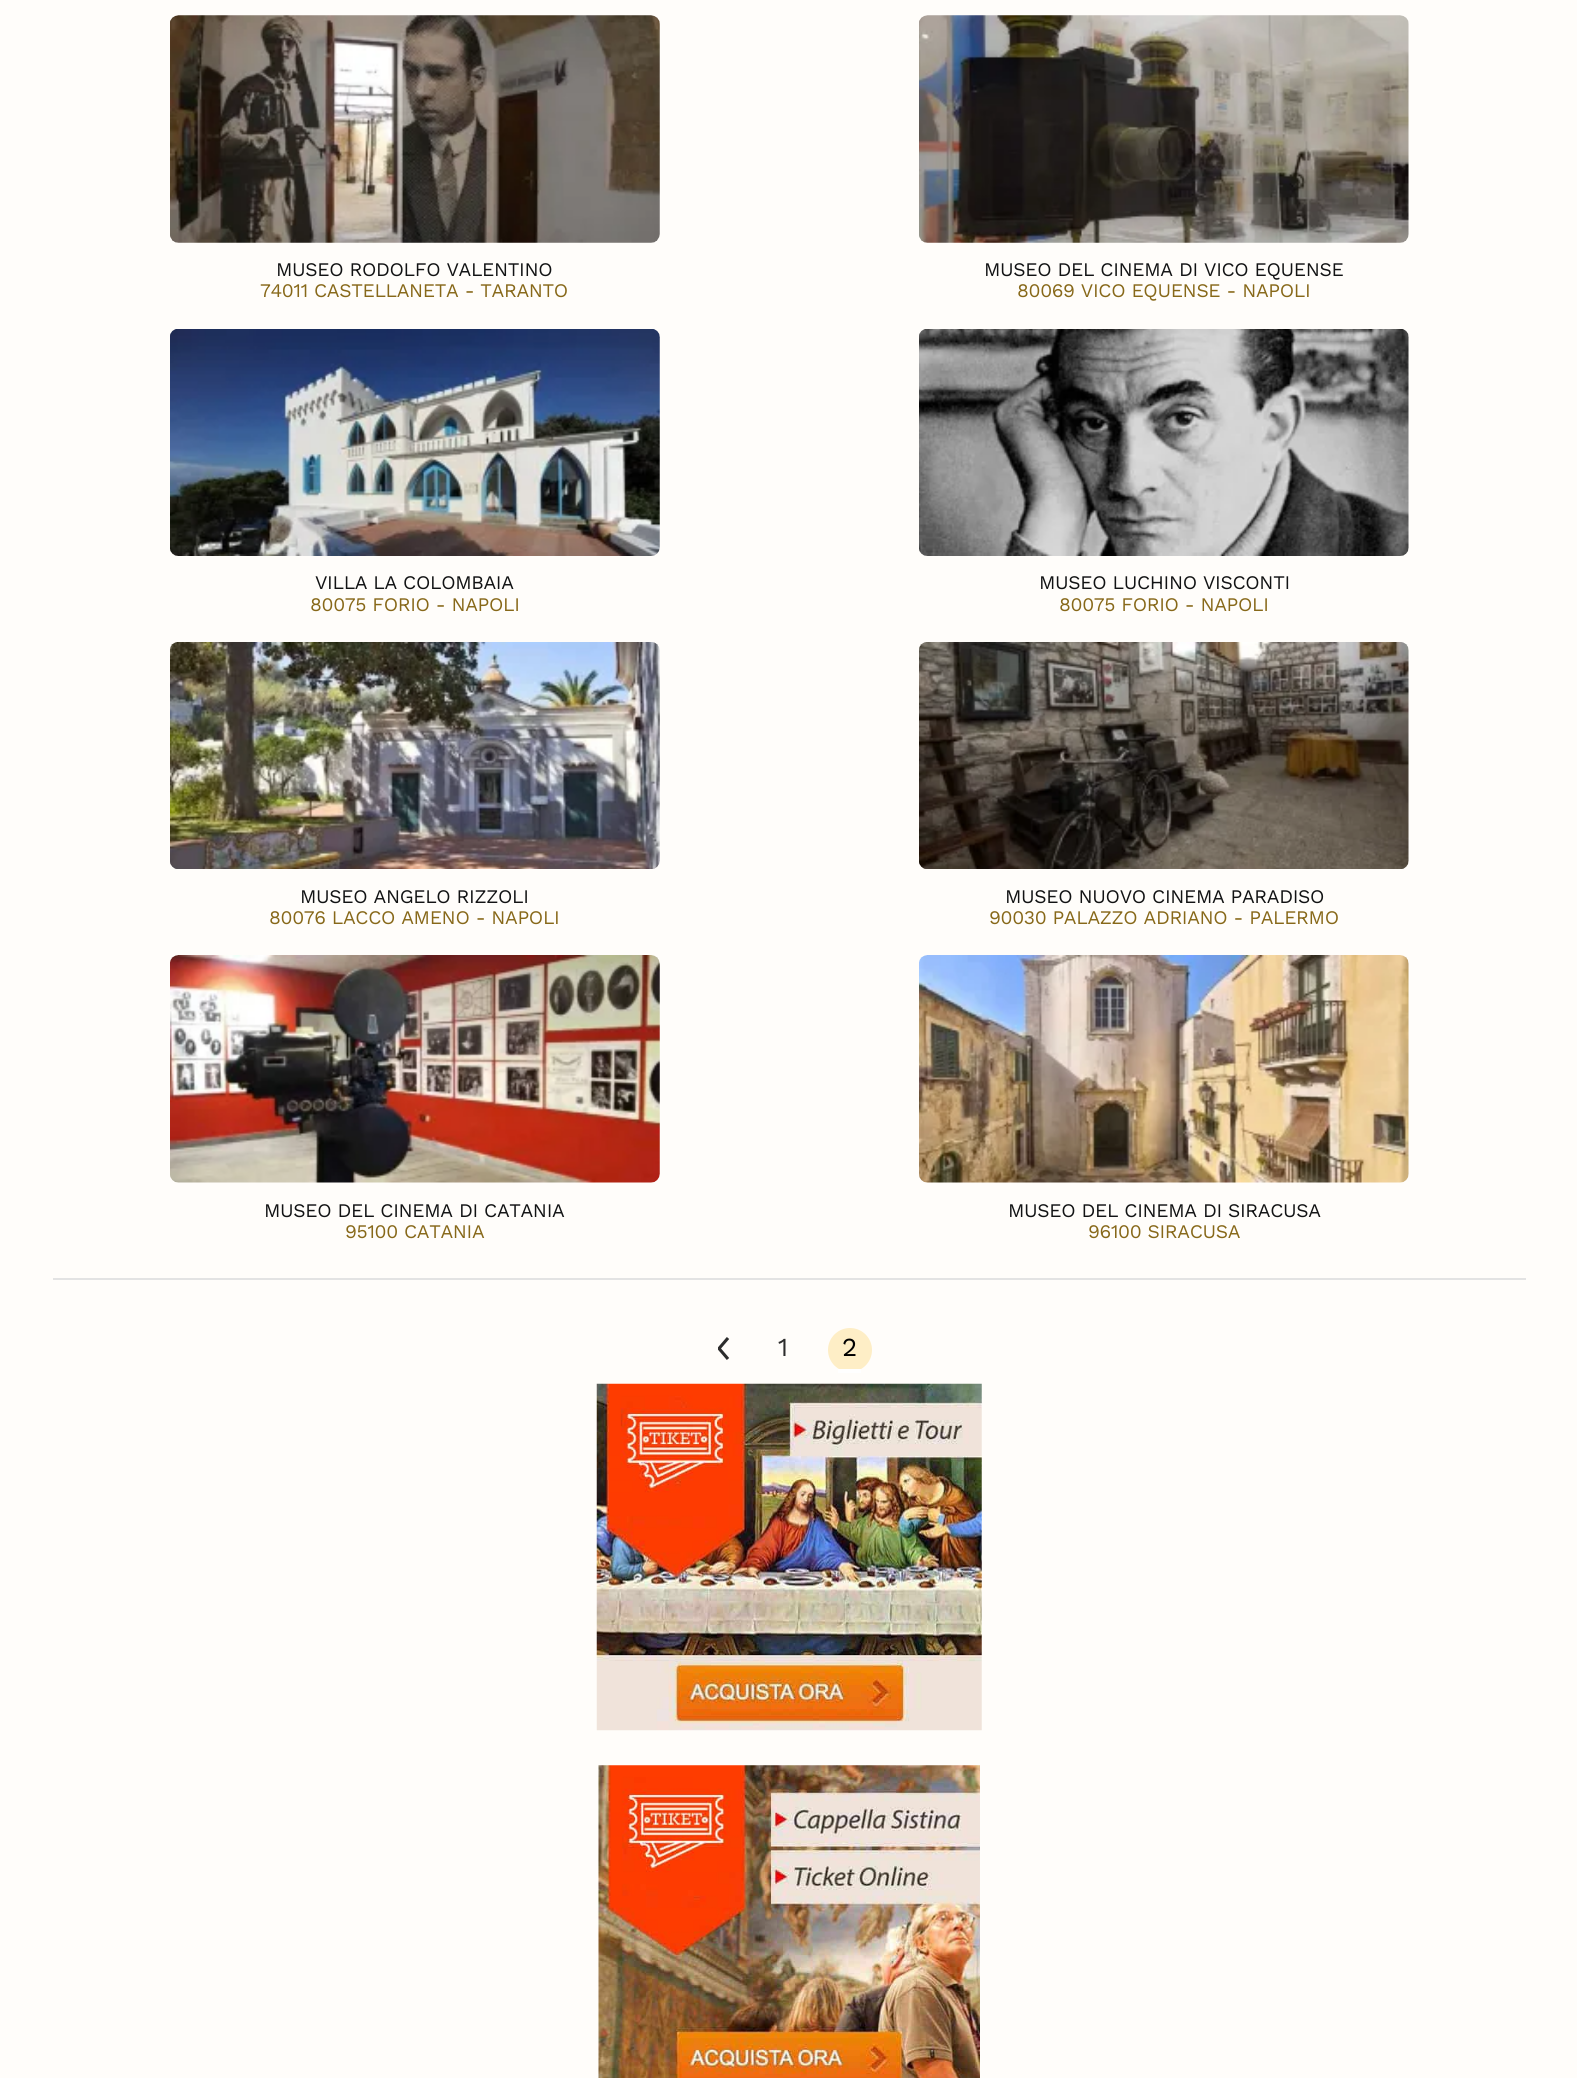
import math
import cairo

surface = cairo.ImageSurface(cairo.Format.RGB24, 1577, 2078)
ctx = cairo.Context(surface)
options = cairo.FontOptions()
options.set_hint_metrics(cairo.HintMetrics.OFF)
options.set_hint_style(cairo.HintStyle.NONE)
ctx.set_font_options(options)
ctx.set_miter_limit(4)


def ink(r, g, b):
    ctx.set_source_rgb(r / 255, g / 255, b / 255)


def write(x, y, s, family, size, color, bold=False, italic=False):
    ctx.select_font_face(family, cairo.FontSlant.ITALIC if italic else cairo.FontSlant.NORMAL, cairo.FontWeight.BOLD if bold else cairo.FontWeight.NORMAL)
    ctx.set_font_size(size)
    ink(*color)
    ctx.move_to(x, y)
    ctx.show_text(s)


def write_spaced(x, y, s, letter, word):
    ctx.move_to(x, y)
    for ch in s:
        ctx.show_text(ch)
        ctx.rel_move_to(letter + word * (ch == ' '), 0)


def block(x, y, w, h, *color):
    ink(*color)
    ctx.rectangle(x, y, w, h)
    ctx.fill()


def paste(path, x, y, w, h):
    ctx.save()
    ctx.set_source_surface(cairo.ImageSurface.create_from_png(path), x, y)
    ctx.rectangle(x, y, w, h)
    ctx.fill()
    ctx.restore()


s1 = dict(family="Work Sans", size=26, color=(44, 44, 44))
s2 = dict(family="Work Sans", size=26, color=(0, 0, 0))

ink(255, 253, 250)
ctx.paint()
paste("pic1.png", 170, 15, 490, 228)
ctx.select_font_face("Work Sans")
ctx.set_font_size(19.25)
ink(18, 19, 20)
write_spaced(276, 276, "MUSEO RODOLFO VALENTINO", -0.35, 0)
ink(135, 104, 25)
write_spaced(260, 297, "74011 CASTELLANETA - TARANTO", -0.35, 0)
paste("pic2.png", 919, 15, 490, 228)
ink(18, 19, 20)
write_spaced(984, 276, "MUSEO DEL CINEMA DI VICO EQUENSE", -0.35, 0)
ink(135, 104, 25)
write_spaced(1017, 297, "80069 VICO EQUENSE - NAPOLI", -0.35, 0)
paste("pic3.png", 170, 329, 490, 227)
ink(18, 19, 20)
write_spaced(315, 589, "VILLA LA COLOMBAIA", -0.35, 0)
ink(135, 104, 25)
write_spaced(310, 611, "80075 FORIO - NAPOLI", -0.35, 0)
paste("pic4.png", 919, 329, 490, 227)
ink(18, 19, 20)
write_spaced(1039, 589, "MUSEO LUCHINO VISCONTI", -0.35, 0)
ink(135, 104, 25)
write_spaced(1059, 611, "80075 FORIO - NAPOLI", -0.35, 0)
paste("pic5.png", 170, 642, 490, 227)
ink(18, 19, 20)
write_spaced(300, 903, "MUSEO ANGELO RIZZOLI", -0.35, 0)
ink(135, 104, 25)
write_spaced(269, 924, "80076 LACCO AMENO - NAPOLI", -0.35, 0)
paste("pic6.png", 919, 642, 490, 227)
ink(18, 19, 20)
write_spaced(1005, 903, "MUSEO NUOVO CINEMA PARADISO", -0.35, 0)
ink(135, 104, 25)
write_spaced(989, 924, "90030 PALAZZO ADRIANO - PALERMO", -0.35, 0)
paste("pic7.png", 170, 955, 490, 228)
ink(18, 19, 20)
write_spaced(264, 1217, "MUSEO DEL CINEMA DI CATANIA", -0.35, 0)
ink(135, 104, 25)
write_spaced(345, 1238, "95100 CATANIA", -0.35, 0)
paste("pic8.png", 919, 955, 490, 228)
ink(18, 19, 20)
write_spaced(1008, 1217, "MUSEO DEL CINEMA DI SIRACUSA", -0.35, 0)
ink(135, 104, 25)
write_spaced(1088, 1238, "96100 SIRACUSA", -0.35, 0)
block(53, 1278, 1473, 2, 227, 227, 227)
ctx.save()
ctx.rectangle(718, 1337, 12, 23)
ctx.clip()
ctx.new_path()
ctx.move_to(728, 1338)
ctx.line_to(719, 1348.5)
ctx.line_to(728, 1359)
ink(44, 44, 44)
ctx.set_line_width(3.1)
ctx.stroke()
ctx.restore()
write(778, 1356, "1", **s1)
ink(254, 238, 198)
ctx.new_path()
ctx.arc(850, 1350, 22, 0, 2 * math.pi)
ctx.fill()
block(838, 1369, 23, 4, 255, 255, 255)
write(842, 1356, "2", **s2)
paste("pic9.png", 596, 1383, 386, 348)
paste("pic10.png", 598, 1765, 382, 313)
surface.write_to_png("screenshot.png")
